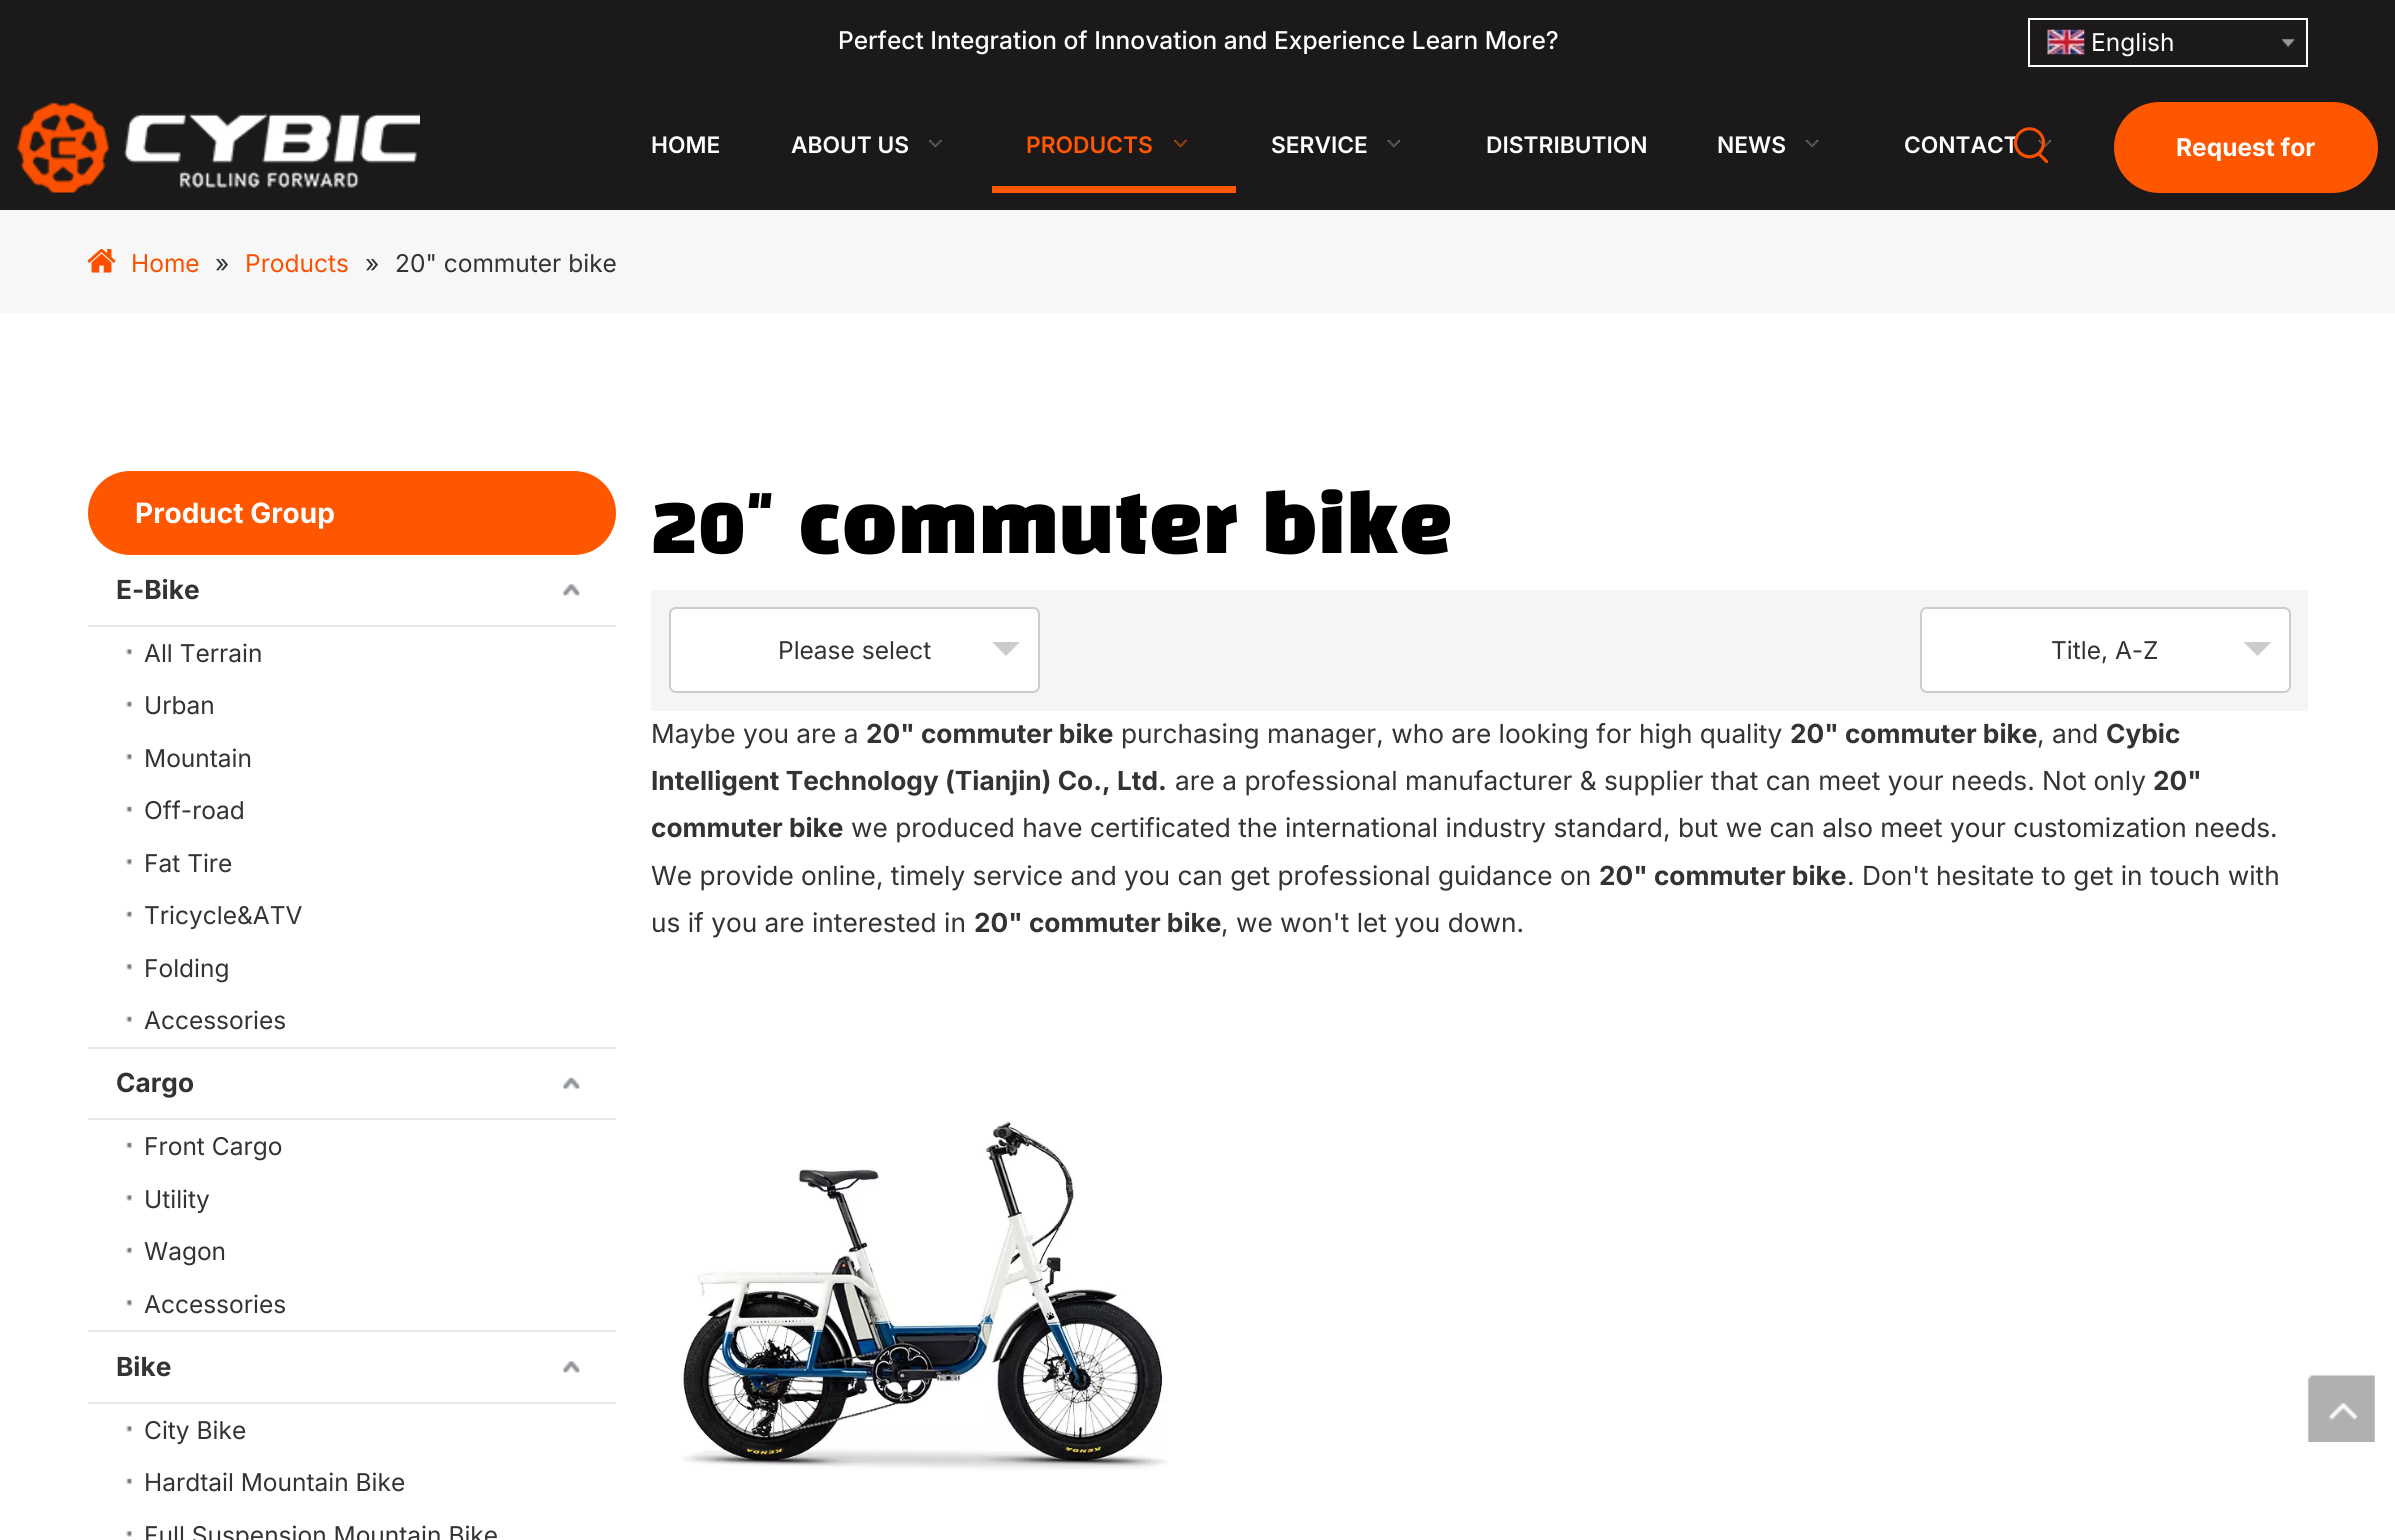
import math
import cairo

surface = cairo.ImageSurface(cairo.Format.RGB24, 2395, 1540)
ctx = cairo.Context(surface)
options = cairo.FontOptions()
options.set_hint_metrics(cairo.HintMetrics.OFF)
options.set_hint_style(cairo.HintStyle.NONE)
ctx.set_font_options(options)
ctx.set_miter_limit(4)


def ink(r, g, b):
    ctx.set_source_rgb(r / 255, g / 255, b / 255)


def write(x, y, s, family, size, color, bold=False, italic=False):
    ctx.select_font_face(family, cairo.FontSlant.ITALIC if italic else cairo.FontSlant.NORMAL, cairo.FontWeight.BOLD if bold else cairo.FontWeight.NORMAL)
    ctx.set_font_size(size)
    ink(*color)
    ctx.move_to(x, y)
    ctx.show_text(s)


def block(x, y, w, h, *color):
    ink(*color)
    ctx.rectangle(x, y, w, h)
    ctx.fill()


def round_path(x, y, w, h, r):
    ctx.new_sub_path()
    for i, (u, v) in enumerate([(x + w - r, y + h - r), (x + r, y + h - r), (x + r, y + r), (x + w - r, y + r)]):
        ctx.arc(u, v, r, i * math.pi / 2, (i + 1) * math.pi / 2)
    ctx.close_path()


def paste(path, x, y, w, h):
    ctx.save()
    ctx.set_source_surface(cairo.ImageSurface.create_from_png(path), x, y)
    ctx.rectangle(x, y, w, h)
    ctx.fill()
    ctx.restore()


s1 = dict(family="Inter Medium", size=24.5, color=(255, 255, 255))
s2 = dict(family="Inter", size=24.5, color=(255, 255, 255))
s3 = dict(family="Inter SemiBold", size=22.75, color=(255, 255, 255))
s4 = dict(family="Inter SemiBold", size=22.75, color=(255, 87, 0))
s5 = dict(family="Inter", size=24.5, color=(255, 255, 255), bold=True)
s6 = dict(family="Inter", size=24.5, color=(252, 80, 0))
s7 = dict(family="Inter", size=24.5, color=(51, 51, 51))
s8 = dict(family="Inter", size=28, color=(255, 255, 255), bold=True)
s9 = dict(family="Inter", size=26.25, color=(51, 51, 51), bold=True)
s10 = dict(family="Black Han Sans Black", size=78.75, color=(0, 0, 0))
s11 = dict(family="Inter", size=26.25, color=(51, 51, 51))

ink(255, 255, 255)
ctx.paint()
block(0, 0, 2395, 210, 27, 25, 25)
write(838, 49, "Perfect Integration of Innovation and Experience Learn More?", **s1)
ctx.rectangle(2029, 19, 278, 47)
ctx.stroke()
paste("pic1.png", 2047, 29, 38, 26)
write(2091, 51, "English", **s2)
paste("pic2.png", 2281, 38, 14, 10)
paste("pic3.png", 17, 102, 403, 91)
write(651, 153, "HOME", **s3)
write(791, 153, "ABOUT US", **s3)
paste("pic4.png", 929, 140, 13, 7)
block(992, 186, 244, 7, 255, 87, 0)
write(1026, 153, "PRODUCTS", **s4)
paste("pic5.png", 1174, 140, 13, 7)
write(1271, 153, "SERVICE", **s3)
paste("pic6.png", 1387, 140, 13, 7)
write(1486, 153, "DISTRIBUTION", **s3)
write(1717, 153, "NEWS", **s3)
paste("pic7.png", 1806, 140, 13, 7)
write(1904, 153, "CONTACT", **s3)
paste("pic8.png", 2038, 140, 13, 7)
paste("pic9.png", 2013, 127, 36, 36)
ink(255, 87, 0)
round_path(2114, 102, 264, 91, 45.5)
ctx.fill()
write(2176, 156, "Request for", **s5)
block(0, 210, 2395, 103, 247, 247, 247)
paste("pic10.png", 87, 249, 29, 24)
write(131, 272, "Home", **s6)
write(215, 272, "»", **s7)
write(245, 272, "Products", **s6)
write(365, 272, "»", **s7)
write(395, 272, "20\" commuter bike", **s7)
ink(255, 87, 0)
round_path(88, 471, 528, 84, 42)
ctx.fill()
write(135, 523, "Product Group", **s8)
block(88, 625, 528, 2, 231, 231, 231)
write(116, 599, "E-Bike", **s9)
paste("pic11.png", 563, 584, 17, 12)
paste("pic12.png", 126, 649, 6, 6)
write(144, 662, "All Terrain", **s7)
paste("pic13.png", 126, 701, 6, 6)
write(144, 714, "Urban", **s7)
paste("pic12.png", 126, 754, 6, 6)
write(144, 767, "Mountain", **s7)
paste("pic13.png", 126, 806, 6, 6)
write(144, 819, "Off-road", **s7)
paste("pic12.png", 126, 859, 6, 6)
write(144, 872, "Fat Tire", **s7)
paste("pic13.png", 126, 911, 6, 6)
write(144, 924, "Tricycle&ATV", **s7)
paste("pic12.png", 126, 964, 6, 6)
write(144, 977, "Folding", **s7)
paste("pic13.png", 126, 1016, 6, 6)
write(144, 1029, "Accessories", **s7)
block(88, 1047, 528, 2, 231, 231, 231)
block(88, 1118, 528, 2, 231, 231, 231)
write(116, 1092, "Cargo", **s9)
paste("pic14.png", 563, 1077, 17, 12)
paste("pic13.png", 126, 1142, 6, 6)
write(144, 1155, "Front Cargo", **s7)
paste("pic12.png", 126, 1195, 6, 6)
write(144, 1208, "Utility", **s7)
paste("pic13.png", 126, 1247, 6, 6)
write(144, 1260, "Wagon", **s7)
paste("pic12.png", 126, 1300, 6, 6)
write(144, 1313, "Accessories", **s7)
block(88, 1330, 528, 2, 231, 231, 231)
block(88, 1402, 528, 2, 231, 231, 231)
write(116, 1376, "Bike", **s9)
paste("pic11.png", 563, 1361, 17, 12)
paste("pic12.png", 126, 1426, 6, 6)
write(144, 1439, "City Bike", **s7)
paste("pic13.png", 126, 1478, 6, 6)
write(144, 1491, "Hardtail Mountain Bike", **s7)
paste("pic12.png", 126, 1531, 6, 6)
write(144, 1544, "Full Suspension Mountain Bike", **s7)
write(651, 553, "20\" commuter bike", **s10)
block(651, 590, 1657, 121, 245, 245, 245)
ink(255, 255, 255)
round_path(670, 608, 369, 84, 6)
ctx.fill_preserve()
ink(204, 204, 204)
ctx.stroke()
write(778, 659, "Please select", **s7)
ink(204, 204, 204)
ctx.new_path()
ctx.move_to(992, 642)
ctx.line_to(1006, 656)
ctx.line_to(1020, 642)
ctx.close_path()
ctx.fill()
ink(255, 255, 255)
round_path(1921, 608, 369, 84, 6)
ctx.fill_preserve()
ink(204, 204, 204)
ctx.stroke()
write(2051, 659, "Title, A-Z", **s7)
ink(204, 204, 204)
ctx.new_path()
ctx.move_to(2243.5, 642)
ctx.line_to(2257.5, 656)
ctx.line_to(2271.5, 642)
ctx.close_path()
ctx.fill()
write(651, 743, "Maybe you are a", **s11)
write(866, 743, "20\" commuter bike", **s9)
write(1121, 743, "purchasing manager, who are looking for high quality", **s11)
write(1790, 743, "20\" commuter bike", **s9)
write(2037, 743, ", and", **s11)
write(2106, 743, "Cybic", **s9)
write(651, 790, "Intelligent Technology (Tianjin) Co., Ltd.", **s9)
write(1175, 790, "are a professional manufacturer & supplier that can meet your needs. Not only", **s11)
write(2153, 790, "20\"", **s9)
write(651, 837, "commuter bike", **s9)
write(851, 837, "we produced have certificated the international industry standard, but we can also meet your customization needs.", **s11)
write(651, 885, "We provide online, timely service and you can get professional guidance on", **s11)
write(1599, 885, "20\" commuter bike", **s9)
write(1847, 885, ". Don't hesitate to get in touch with", **s11)
write(651, 932, "us if you are interested in", **s11)
write(974, 932, "20\" commuter bike", **s9)
write(1221, 932, ", we won't let you down.", **s11)
paste("pic15.png", 681, 1121, 487, 350)
paste("pic16.png", 2308, 1375, 67, 67)
surface.write_to_png("screenshot.png")
